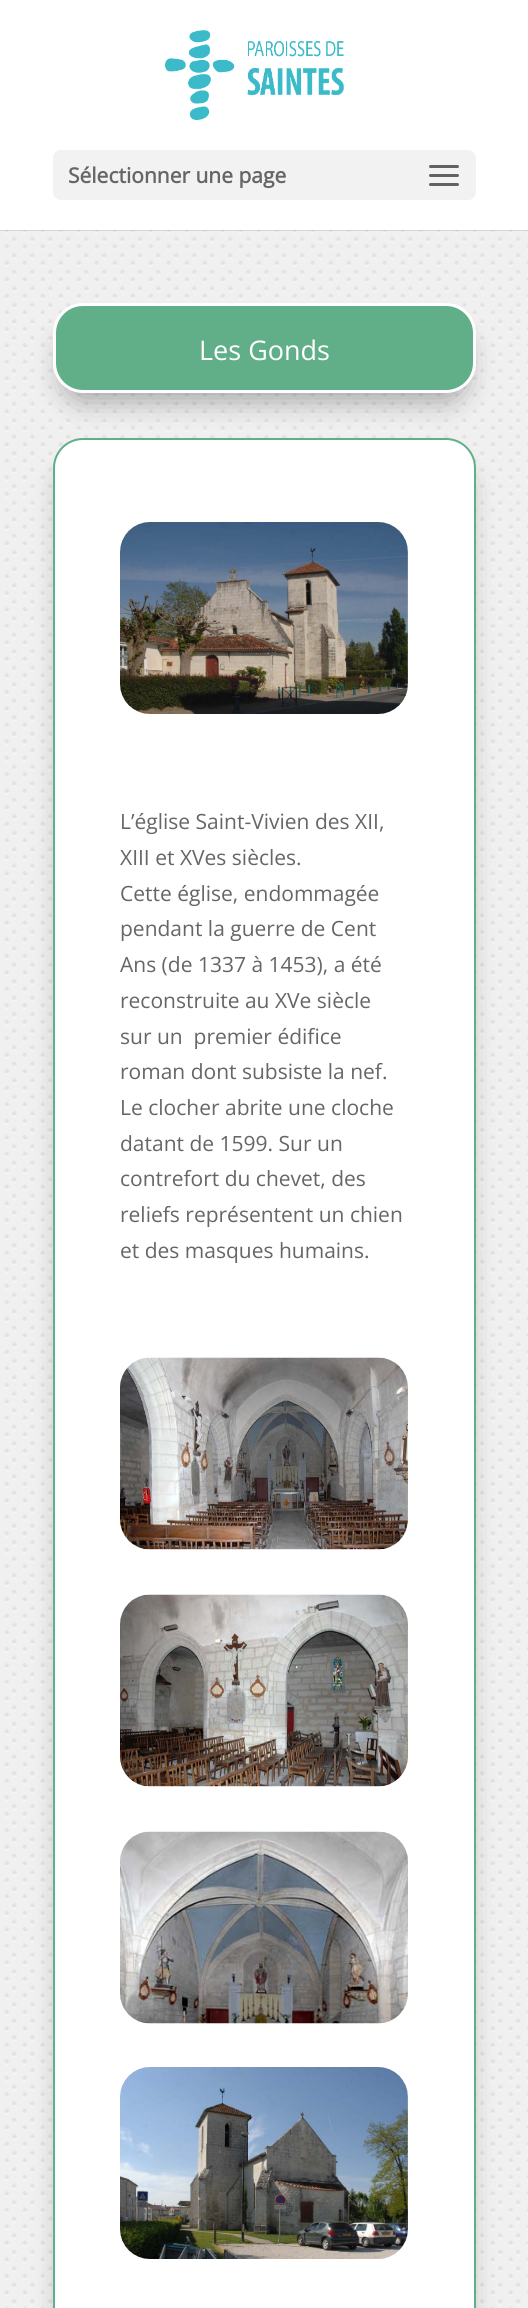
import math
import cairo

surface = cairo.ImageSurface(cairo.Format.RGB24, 528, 2308)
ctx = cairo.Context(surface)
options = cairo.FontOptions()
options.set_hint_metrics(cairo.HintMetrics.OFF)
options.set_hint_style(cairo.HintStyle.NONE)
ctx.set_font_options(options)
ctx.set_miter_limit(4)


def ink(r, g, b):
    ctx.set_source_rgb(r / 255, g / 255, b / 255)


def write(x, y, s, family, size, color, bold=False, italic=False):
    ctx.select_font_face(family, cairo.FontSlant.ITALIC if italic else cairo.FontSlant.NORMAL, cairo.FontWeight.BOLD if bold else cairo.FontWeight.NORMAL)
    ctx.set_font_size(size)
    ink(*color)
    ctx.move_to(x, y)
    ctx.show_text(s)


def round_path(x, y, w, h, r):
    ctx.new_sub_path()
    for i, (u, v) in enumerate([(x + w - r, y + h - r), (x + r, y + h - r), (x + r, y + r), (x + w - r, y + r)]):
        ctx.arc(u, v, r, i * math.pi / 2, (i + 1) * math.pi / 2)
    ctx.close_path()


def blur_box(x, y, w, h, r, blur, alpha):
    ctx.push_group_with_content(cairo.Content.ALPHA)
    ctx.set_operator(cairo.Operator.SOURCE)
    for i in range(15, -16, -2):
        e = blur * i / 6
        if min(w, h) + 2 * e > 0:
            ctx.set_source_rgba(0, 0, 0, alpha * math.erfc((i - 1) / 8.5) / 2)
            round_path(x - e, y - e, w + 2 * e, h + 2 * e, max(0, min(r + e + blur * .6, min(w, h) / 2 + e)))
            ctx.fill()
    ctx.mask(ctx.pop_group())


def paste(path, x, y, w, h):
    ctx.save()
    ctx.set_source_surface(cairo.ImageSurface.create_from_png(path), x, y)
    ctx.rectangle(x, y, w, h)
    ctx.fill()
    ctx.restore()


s1 = dict(family="Open Sans", size=21, color=(102, 102, 102), bold=True)
s2 = dict(family="Open Sans", size=27, color=(255, 255, 255))
s3 = dict(family="Open Sans", size=21, color=(102, 102, 102))

ink(255, 255, 255)
ctx.paint()
paste("pic3.png", 0, 230, 528, 2078)
ctx.set_source_rgba(0, 0, 0, 0.1)
ctx.rectangle(0, 230, 528, 1)
ctx.fill()
paste("pic1.png", 165, 30, 179, 90)
ink(242, 242, 242)
round_path(53, 150, 423, 50, 8)
ctx.fill()
write(68, 183, "Sélectionner une page", **s1)
paste("pic2.png", 429, 165, 30, 21)
ink(0, 0, 0)
blur_box(62, 330, 405, 72, 21, 13.5, 0.3)
ink(96, 175, 136)
round_path(54.5, 304.5, 420, 87, 28.5)
ctx.fill_preserve()
ink(255, 255, 255)
ctx.set_line_width(3)
ctx.stroke()
write(199, 360, "Les Gonds", **s2)
ink(0, 0, 0)
blur_box(62, 465, 405, 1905, 21, 13.5, 0.3)
ink(255, 255, 255)
round_path(54, 439, 421, 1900, 29)
ctx.fill_preserve()
ink(96, 175, 136)
ctx.set_line_width(2)
ctx.stroke()
paste("pic4.png", 120, 522, 288, 192)
write(120, 829, "L’église Saint-Vivien des XII,", **s3)
write(120, 865, "XIII et XVes siècles.", **s3)
write(120, 901, "Cette église, endommagée", **s3)
write(120, 936, "pendant la guerre de Cent", **s3)
write(120, 972, "Ans (de 1337 à 1453), a été", **s3)
write(120, 1008, "reconstruite au XVe siècle", **s3)
write(120, 1044, "sur un  premier édifice", **s3)
write(120, 1079, "roman dont subsiste la nef.", **s3)
write(120, 1115, "Le clocher abrite une cloche", **s3)
write(120, 1151, "datant de 1599. Sur un", **s3)
write(120, 1186, "contrefort du chevet, des", **s3)
write(120, 1222, "reliefs représentent un chien", **s3)
write(120, 1258, "et des masques humains.", **s3)
paste("pic5.png", 120, 1357, 288, 193)
paste("pic6.png", 120, 1594, 288, 193)
paste("pic7.png", 120, 1831, 288, 193)
paste("pic8.png", 120, 2067, 288, 192)
surface.write_to_png("screenshot.png")
